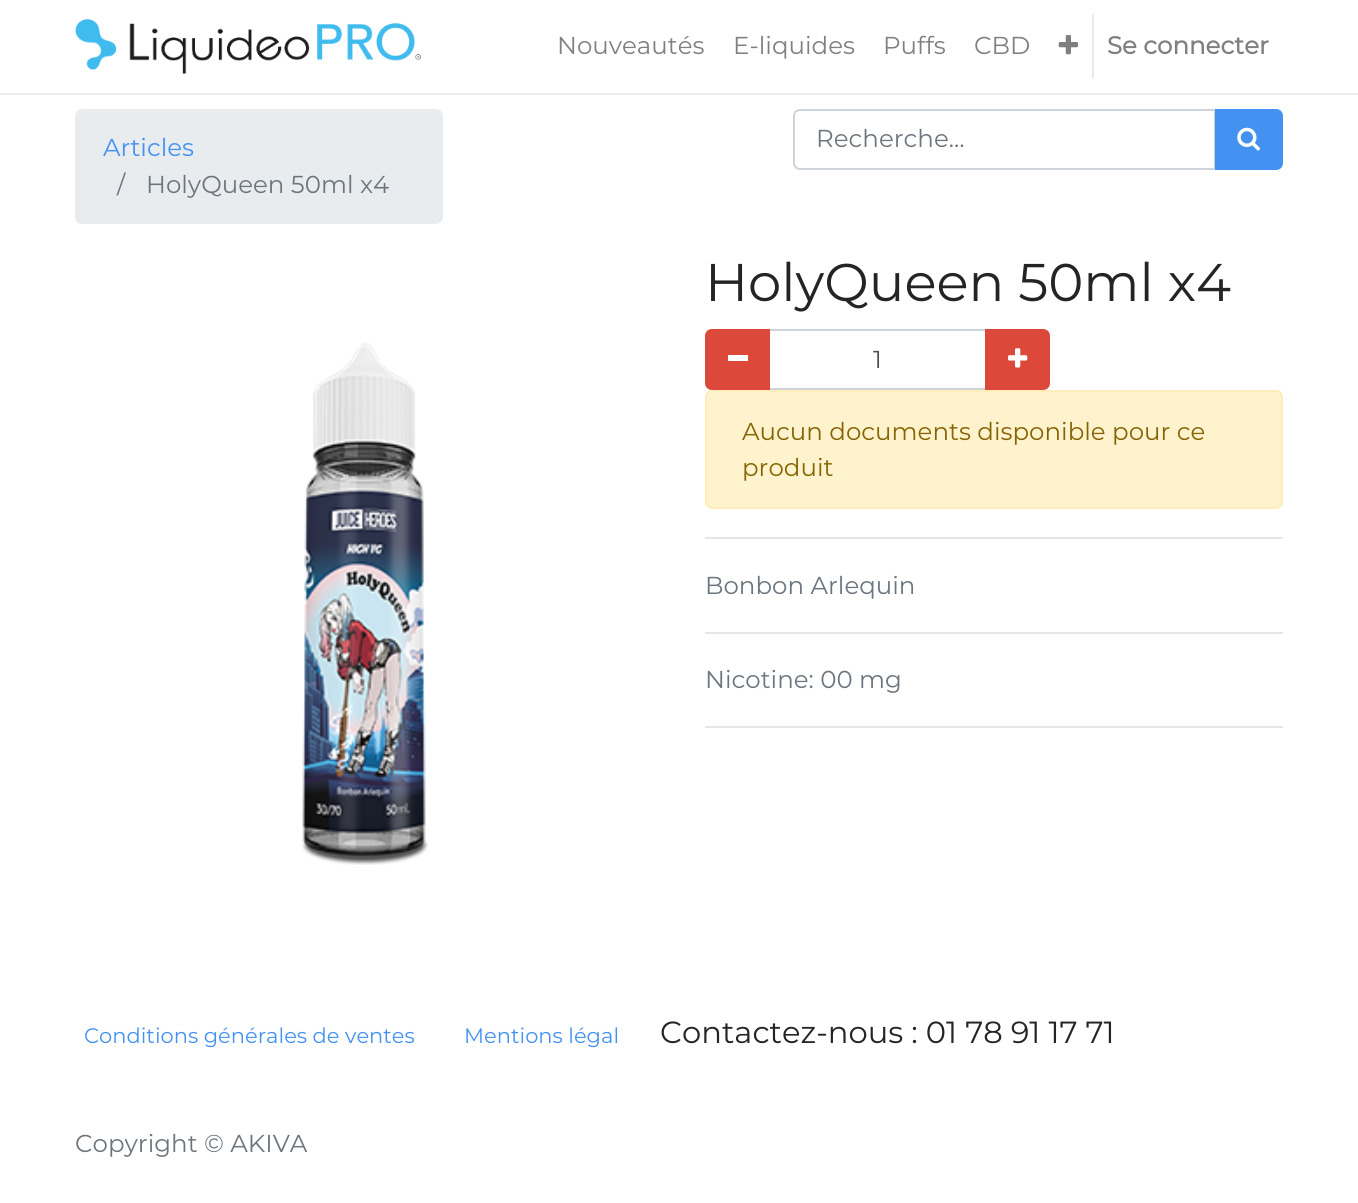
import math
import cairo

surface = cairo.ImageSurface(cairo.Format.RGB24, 1358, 1203)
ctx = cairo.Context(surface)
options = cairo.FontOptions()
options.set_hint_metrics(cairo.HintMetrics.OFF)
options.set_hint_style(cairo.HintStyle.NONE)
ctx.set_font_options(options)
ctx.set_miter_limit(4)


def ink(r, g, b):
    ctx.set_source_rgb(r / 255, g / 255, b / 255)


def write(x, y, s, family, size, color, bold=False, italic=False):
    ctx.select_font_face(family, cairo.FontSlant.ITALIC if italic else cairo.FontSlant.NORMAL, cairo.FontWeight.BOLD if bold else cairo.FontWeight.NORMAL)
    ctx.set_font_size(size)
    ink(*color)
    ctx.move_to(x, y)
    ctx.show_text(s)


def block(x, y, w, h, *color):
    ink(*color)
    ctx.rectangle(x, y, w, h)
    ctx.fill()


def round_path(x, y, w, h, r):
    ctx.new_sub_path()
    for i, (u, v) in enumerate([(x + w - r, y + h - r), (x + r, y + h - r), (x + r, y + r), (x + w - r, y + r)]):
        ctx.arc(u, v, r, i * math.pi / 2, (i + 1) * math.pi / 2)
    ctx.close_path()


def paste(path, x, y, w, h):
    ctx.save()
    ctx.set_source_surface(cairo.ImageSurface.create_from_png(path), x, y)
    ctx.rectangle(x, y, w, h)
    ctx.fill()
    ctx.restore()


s1 = dict(family="Montserrat", size=24.5, color=(128, 128, 128))
s2 = dict(family="Montserrat", size=24.5, color=(128, 128, 128), bold=True)
s3 = dict(family="Montserrat", size=24.5, color=(67, 146, 241))
s4 = dict(family="Montserrat", size=24.5, color=(108, 117, 125))
s5 = dict(family="Montserrat", size=53, color=(36, 36, 36))
s6 = dict(family="Montserrat", size=24.5, color=(73, 80, 87))
s7 = dict(family="Montserrat", size=24.5, color=(133, 100, 4))
s8 = dict(family="Montserrat", size=21, color=(67, 146, 241))
s9 = dict(family="Montserrat", size=30.6, color=(36, 36, 36))

ink(255, 255, 255)
ctx.paint()
block(0, 93, 1358, 2, 237, 237, 237)
paste("pic1.png", 75, 19, 346, 55)
write(557, 54, "Nouveautés", **s1)
write(733, 54, "E-liquides", **s1)
write(883, 54, "Puffs", **s1)
write(974, 54, "CBD", **s1)
paste("pic2.png", 1058, 35, 20, 20)
block(1092, 14, 2, 65, 233, 236, 239)
write(1107, 54, "Se connecter", **s2)
ink(233, 236, 239)
round_path(75, 109, 368, 115, 7)
ctx.fill()
write(103, 156, "Articles", **s3)
write(117, 193, "/", **s4)
write(146, 193, "HolyQueen 50ml x4", **s4)
ctx.new_path()
ctx.move_to(800, 110)
ctx.line_to(1215, 110)
ctx.line_to(1215, 169)
ctx.line_to(800, 169)
ctx.curve_to(796.5, 169, 794, 166.5, 794, 163)
ctx.line_to(794, 116)
ctx.curve_to(794, 112.5, 796.5, 110, 800, 110)
ctx.close_path()
ink(206, 212, 218)
ctx.stroke()
write(816, 147, "Recherche…", **s4)
ink(67, 146, 241)
ctx.new_path()
ctx.move_to(1216, 110)
ctx.line_to(1276, 110)
ctx.curve_to(1279.5, 110, 1282, 112.5, 1282, 116)
ctx.line_to(1282, 163)
ctx.curve_to(1282, 166.5, 1279.5, 169, 1276, 169)
ctx.line_to(1216, 169)
ctx.close_path()
ctx.fill_preserve()
ctx.stroke()
paste("pic3.png", 1237, 127, 23, 24)
paste("pic4.png", 302, 342, 126, 523)
write(705, 301, "HolyQueen 50ml x4", **s5)
ctx.rectangle(769, 330, 217, 59)
ink(206, 212, 218)
ctx.stroke()
ink(220, 73, 58)
ctx.new_path()
ctx.move_to(712, 330)
ctx.line_to(769, 330)
ctx.line_to(769, 389)
ctx.line_to(712, 389)
ctx.curve_to(708.5, 389, 706, 386.5, 706, 383)
ctx.line_to(706, 336)
ctx.curve_to(706, 332.5, 708.5, 330, 712, 330)
ctx.close_path()
ctx.fill_preserve()
ctx.stroke()
block(728, 355, 20, 6, 255, 255, 255)
write(873, 368, "1", **s6)
ink(220, 73, 58)
ctx.new_path()
ctx.move_to(986, 330)
ctx.line_to(1043, 330)
ctx.curve_to(1046.5, 330, 1049, 332.5, 1049, 336)
ctx.line_to(1049, 383)
ctx.curve_to(1049, 386.5, 1046.5, 389, 1043, 389)
ctx.line_to(986, 389)
ctx.close_path()
ctx.fill_preserve()
ctx.stroke()
paste("pic5.png", 1008, 348, 20, 20)
ink(255, 243, 205)
round_path(706, 391, 576, 117, 6)
ctx.fill_preserve()
ink(255, 238, 186)
ctx.stroke()
write(742, 440, "Aucun documents disponible pour ce", **s7)
write(742, 476, "produit", **s7)
block(705, 537, 578, 2, 230, 230, 230)
write(705, 594, "Bonbon Arlequin", **s4)
block(705, 632, 578, 2, 230, 230, 230)
write(705, 688, "Nicotine: 00 mg", **s4)
block(705, 726, 578, 2, 230, 230, 230)
write(84, 1043, "Conditions générales de ventes", **s8)
write(464, 1043, "Mentions légal", **s8)
write(660, 1043, "Contactez-nous : 01 78 91 17 71", **s9)
write(75, 1152, "Copyright © AKIVA", **s4)
surface.write_to_png("screenshot.png")
